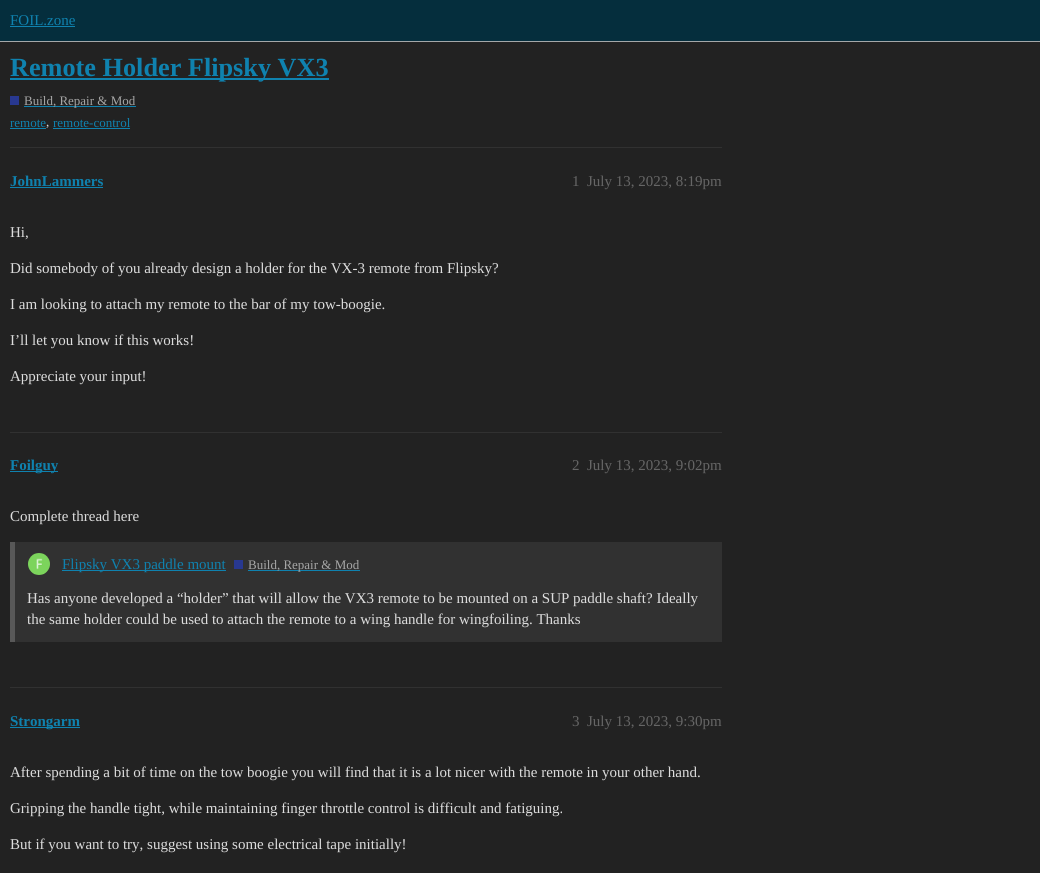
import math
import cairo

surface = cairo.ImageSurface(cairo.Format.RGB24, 1040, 873)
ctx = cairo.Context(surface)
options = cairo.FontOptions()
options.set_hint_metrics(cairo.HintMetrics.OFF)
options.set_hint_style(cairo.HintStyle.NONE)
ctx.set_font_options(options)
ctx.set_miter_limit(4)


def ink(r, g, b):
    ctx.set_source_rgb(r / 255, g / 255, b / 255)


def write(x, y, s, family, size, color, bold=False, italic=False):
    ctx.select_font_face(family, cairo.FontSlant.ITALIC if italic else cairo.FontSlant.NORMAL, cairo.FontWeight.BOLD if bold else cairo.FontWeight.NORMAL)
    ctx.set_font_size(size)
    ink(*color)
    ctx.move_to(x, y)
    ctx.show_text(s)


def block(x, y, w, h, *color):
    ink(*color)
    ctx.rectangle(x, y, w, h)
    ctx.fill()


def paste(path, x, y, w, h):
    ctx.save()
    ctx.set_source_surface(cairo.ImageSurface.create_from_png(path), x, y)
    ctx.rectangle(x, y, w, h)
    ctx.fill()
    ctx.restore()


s1 = dict(family="Liberation Serif", size=15, color=(15, 130, 175))
s2 = dict(family="Liberation Serif", size=26.25, color=(15, 130, 175), bold=True)
s3 = dict(family="Liberation Serif", size=13, color=(166, 166, 166))
s4 = dict(family="Liberation Serif", size=13, color=(15, 130, 175))
s5 = dict(family="Liberation Serif", size=13, color=(221, 221, 221))
s6 = dict(family="Liberation Serif", size=15, color=(15, 130, 175), bold=True)
s7 = dict(family="Liberation Serif", size=15, color=(102, 102, 102))
s8 = dict(family="Liberation Serif", size=15, color=(221, 221, 221))

ink(34, 34, 34)
ctx.paint()
block(0, 0, 1040, 41, 5, 46, 61)
block(0, 41, 1040, 1, 164, 167, 169)
write(10, 25, "FOIL.zone", **s1)
block(10, 26, 65, 1, 15, 130, 175)
block(10, 78, 319, 2, 15, 130, 175)
write(10, 76, "Remote Holder Flipsky VX3", **s2)
block(10, 96, 9, 9, 40, 56, 144)
block(24, 106, 112, 1, 15, 130, 175)
write(24, 105, "Build, Repair & Mod", **s3)
write(10, 127, "remote", **s4)
block(10, 128, 36, 1, 15, 130, 175)
write(46, 126, ",", **s5)
write(53, 127, "remote-control", **s4)
block(53, 128, 77, 1, 15, 130, 175)
block(10, 147, 712, 1, 49, 49, 49)
write(10, 186, "JohnLammers", **s6)
block(10, 187, 93, 1, 15, 130, 175)
write(572, 186, "1", **s7)
write(587, 186, "July 13, 2023, 8:19pm", **s7)
write(10, 237, "Hi,", **s8)
write(10, 273, "Did somebody of you already design a holder for the VX-3 remote from Flipsky?", **s8)
write(10, 309, "I am looking to attach my remote to the bar of my tow-boogie.", **s8)
write(10, 345, "I’ll let you know if this works!", **s8)
write(10, 381, "Appreciate your input!", **s8)
block(10, 432, 712, 1, 49, 49, 49)
block(10, 471, 48, 1, 15, 130, 175)
write(10, 470, "Foilguy", **s6)
write(572, 470, "2", **s7)
write(587, 470, "July 13, 2023, 9:02pm", **s7)
write(10, 521, "Complete thread here", **s8)
block(15, 542, 707, 100, 49, 49, 49)
block(10, 542, 5, 100, 88, 88, 88)
paste("pic1.png", 28, 553, 22, 22)
block(62, 570, 164, 1, 15, 130, 175)
write(62, 569, "Flipsky VX3 paddle mount", **s1)
block(234, 560, 9, 9, 40, 56, 144)
block(248, 570, 112, 1, 15, 130, 175)
write(248, 569, "Build, Repair & Mod", **s3)
write(27, 603, "Has anyone developed a “holder” that will allow the VX3 remote to be mounted on a SUP paddle shaft? Ideally", **s8)
write(27, 624, "the same holder could be used to attach the remote to a wing handle for wingfoiling. Thanks", **s8)
block(10, 687, 712, 1, 49, 49, 49)
block(10, 727, 70, 1, 15, 130, 175)
write(10, 726, "Strongarm", **s6)
write(572, 726, "3", **s7)
write(587, 726, "July 13, 2023, 9:30pm", **s7)
write(10, 777, "After spending a bit of time on the tow boogie you will find that it is a lot nicer with the remote in your other hand.", **s8)
write(10, 813, "Gripping the handle tight, while maintaining finger throttle control is difficult and fatiguing.", **s8)
write(10, 849, "But if you want to try, suggest using some electrical tape initially!", **s8)
surface.write_to_png("screenshot.png")
